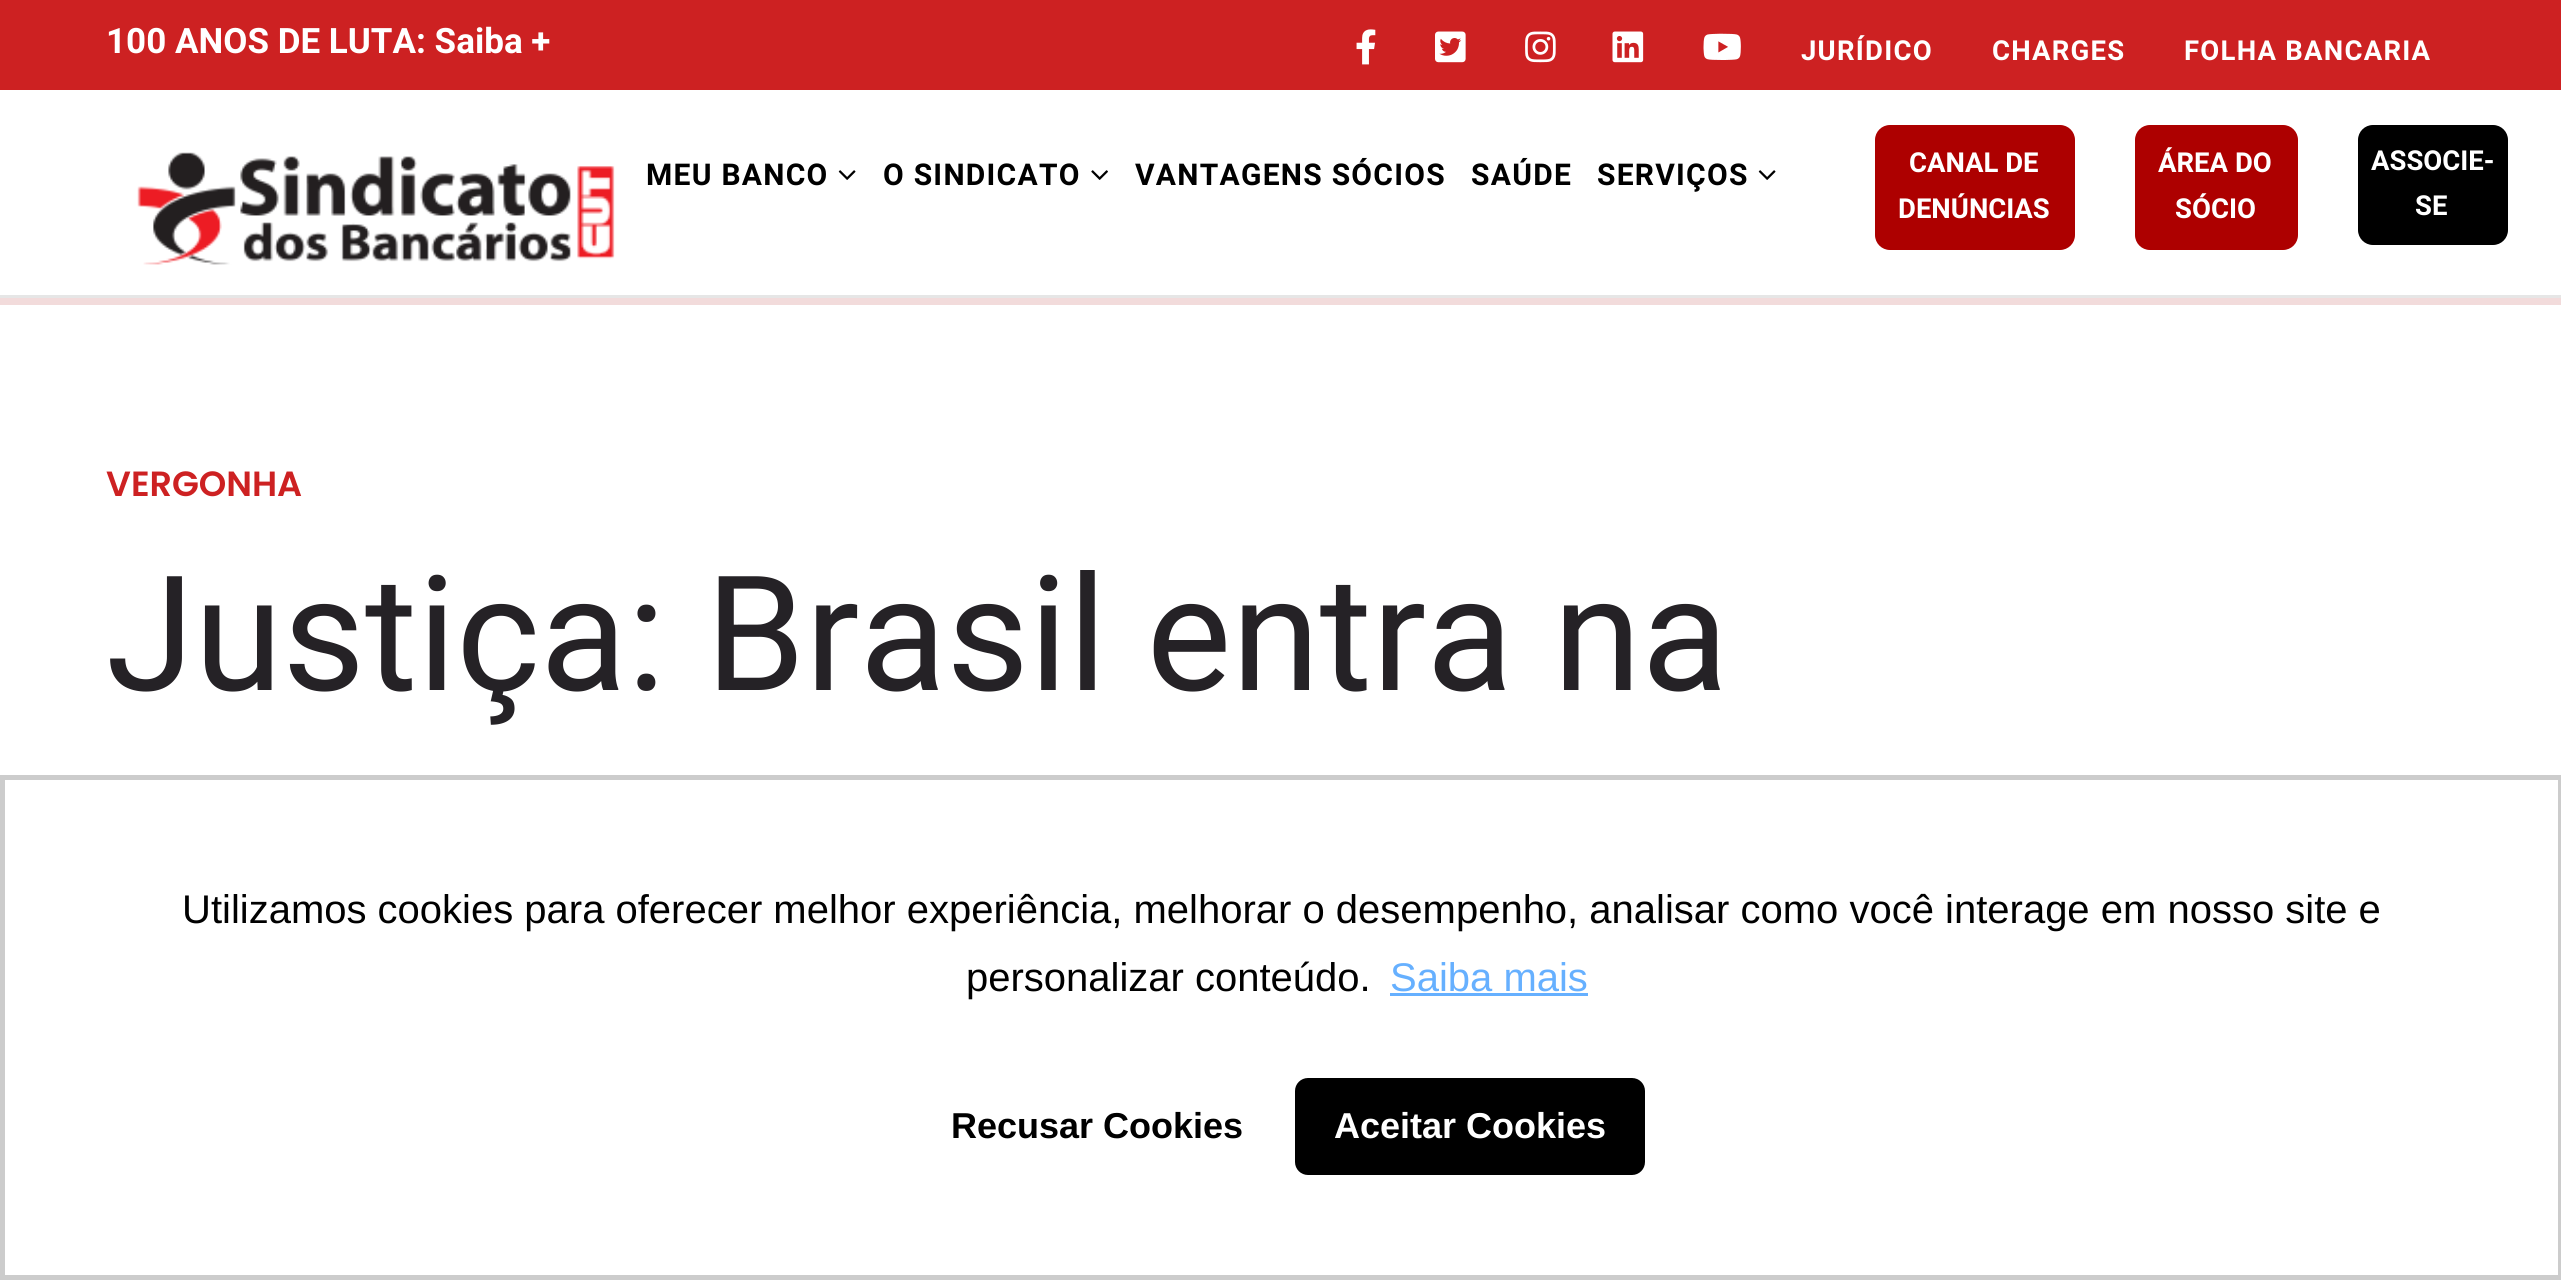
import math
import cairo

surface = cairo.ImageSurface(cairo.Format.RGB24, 2561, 1280)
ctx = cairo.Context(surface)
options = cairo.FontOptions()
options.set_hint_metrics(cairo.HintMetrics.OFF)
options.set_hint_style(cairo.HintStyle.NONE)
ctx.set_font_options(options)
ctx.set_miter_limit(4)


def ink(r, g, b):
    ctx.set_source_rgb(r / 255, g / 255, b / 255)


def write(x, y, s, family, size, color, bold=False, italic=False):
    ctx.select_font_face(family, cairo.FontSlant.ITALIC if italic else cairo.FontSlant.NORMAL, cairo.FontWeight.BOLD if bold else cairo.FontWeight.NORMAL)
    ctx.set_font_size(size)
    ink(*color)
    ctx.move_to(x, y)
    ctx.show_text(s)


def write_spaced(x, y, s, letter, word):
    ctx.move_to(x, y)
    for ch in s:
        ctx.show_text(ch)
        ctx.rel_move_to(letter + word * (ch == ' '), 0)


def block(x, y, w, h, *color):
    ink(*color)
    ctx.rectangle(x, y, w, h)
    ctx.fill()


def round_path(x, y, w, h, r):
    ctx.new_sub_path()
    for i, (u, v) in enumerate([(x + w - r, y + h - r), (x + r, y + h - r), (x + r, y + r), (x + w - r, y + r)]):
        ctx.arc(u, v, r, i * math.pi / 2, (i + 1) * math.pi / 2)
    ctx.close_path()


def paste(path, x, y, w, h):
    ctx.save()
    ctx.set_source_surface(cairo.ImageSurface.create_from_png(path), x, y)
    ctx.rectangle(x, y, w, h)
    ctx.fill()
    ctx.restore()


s1 = dict(family="Roboto", size=35, color=(255, 255, 255), bold=True)
s2 = dict(family="Roboto", size=27.5, color=(255, 255, 255), bold=True)
s3 = dict(family="Poppins SemiBold", size=35, color=(205, 33, 34))
s4 = dict(family="Roboto", size=160, color=(37, 34, 38))
s5 = dict(family="Liberation Sans", size=40, color=(0, 0, 0))
s6 = dict(family="Liberation Sans", size=40, color=(102, 176, 255))
s7 = dict(family="Liberation Sans", size=36, color=(0, 0, 0), bold=True)
s8 = dict(family="Liberation Sans", size=36, color=(255, 255, 255), bold=True)

ink(255, 255, 255)
ctx.paint()
block(0, 0, 2561, 90, 205, 33, 34)
write(106, 53, "100 ANOS DE LUTA: Saiba +", **s1)
paste("pic1.png", 1356, 29, 20, 36)
paste("pic2.png", 1435, 31, 31, 32)
paste("pic3.png", 1525, 31, 31, 32)
paste("pic4.png", 1612, 31, 32, 32)
paste("pic5.png", 1703, 33, 38, 27)
ctx.set_font_size(27.5)
write_spaced(1801, 60, "JURÍDICO", 1.25, 0)
write_spaced(1992, 60, "CHARGES", 1.25, 0)
write_spaced(2184, 60, "FOLHA BANCARIA", 1.25, 0)
block(0, 295, 2561, 3, 230, 230, 230)
paste("pic6.png", 137, 152, 478, 113)
ctx.set_font_size(30)
ink(0, 0, 0)
write_spaced(646, 185, "MEU BANCO", 1.25, 0)
paste("pic7.png", 838, 170, 18, 10)
write_spaced(883, 185, "O SINDICATO", 1.25, 0)
paste("pic8.png", 1091, 170, 17, 10)
write_spaced(1135, 185, "VANTAGENS SÓCIOS", 1.25, 0)
write_spaced(1471, 185, "SAÚDE", 1.25, 0)
write_spaced(1597, 185, "SERVIÇOS", 1.25, 0)
paste("pic7.png", 1758, 170, 18, 10)
ink(173, 0, 0)
round_path(1875, 125, 200, 125, 15)
ctx.fill()
write(1909, 172, "CANAL DE", **s2)
write(1898, 218, "DENÚNCIAS", **s2)
ink(173, 0, 0)
round_path(2135, 125, 163, 125, 15)
ctx.fill()
write(2158, 172, "ÁREA DO", **s2)
write(2175, 218, "SÓCIO", **s2)
ink(0, 0, 0)
round_path(2358, 125, 150, 120, 15)
ctx.fill()
write(2371, 170, "ASSOCIE-", **s2)
write(2415, 215, "SE", **s2)
block(0, 298, 2561, 7, 242, 219, 219)
write(106, 496, "VERGONHA", **s3)
write(106, 690, "Justiça: Brasil entra na", **s4)
ctx.rectangle(2.5, 777.5, 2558, 500)
ink(204, 204, 204)
ctx.set_line_width(5)
ctx.stroke()
write(182, 923, "Utilizamos cookies para oferecer melhor experiência, melhorar o desempenho, analisar como você interage em nosso site e", **s5)
write(966, 991, "personalizar conteúdo.", **s5)
write(1390, 991, "Saiba mais", **s6)
block(1390, 993, 198, 3, 102, 176, 255)
write(951, 1138, "Recusar Cookies", **s7)
round_path(1295, 1078, 350, 97, 13)
ctx.fill()
write(1334, 1138, "Aceitar Cookies", **s8)
surface.write_to_png("screenshot.png")
